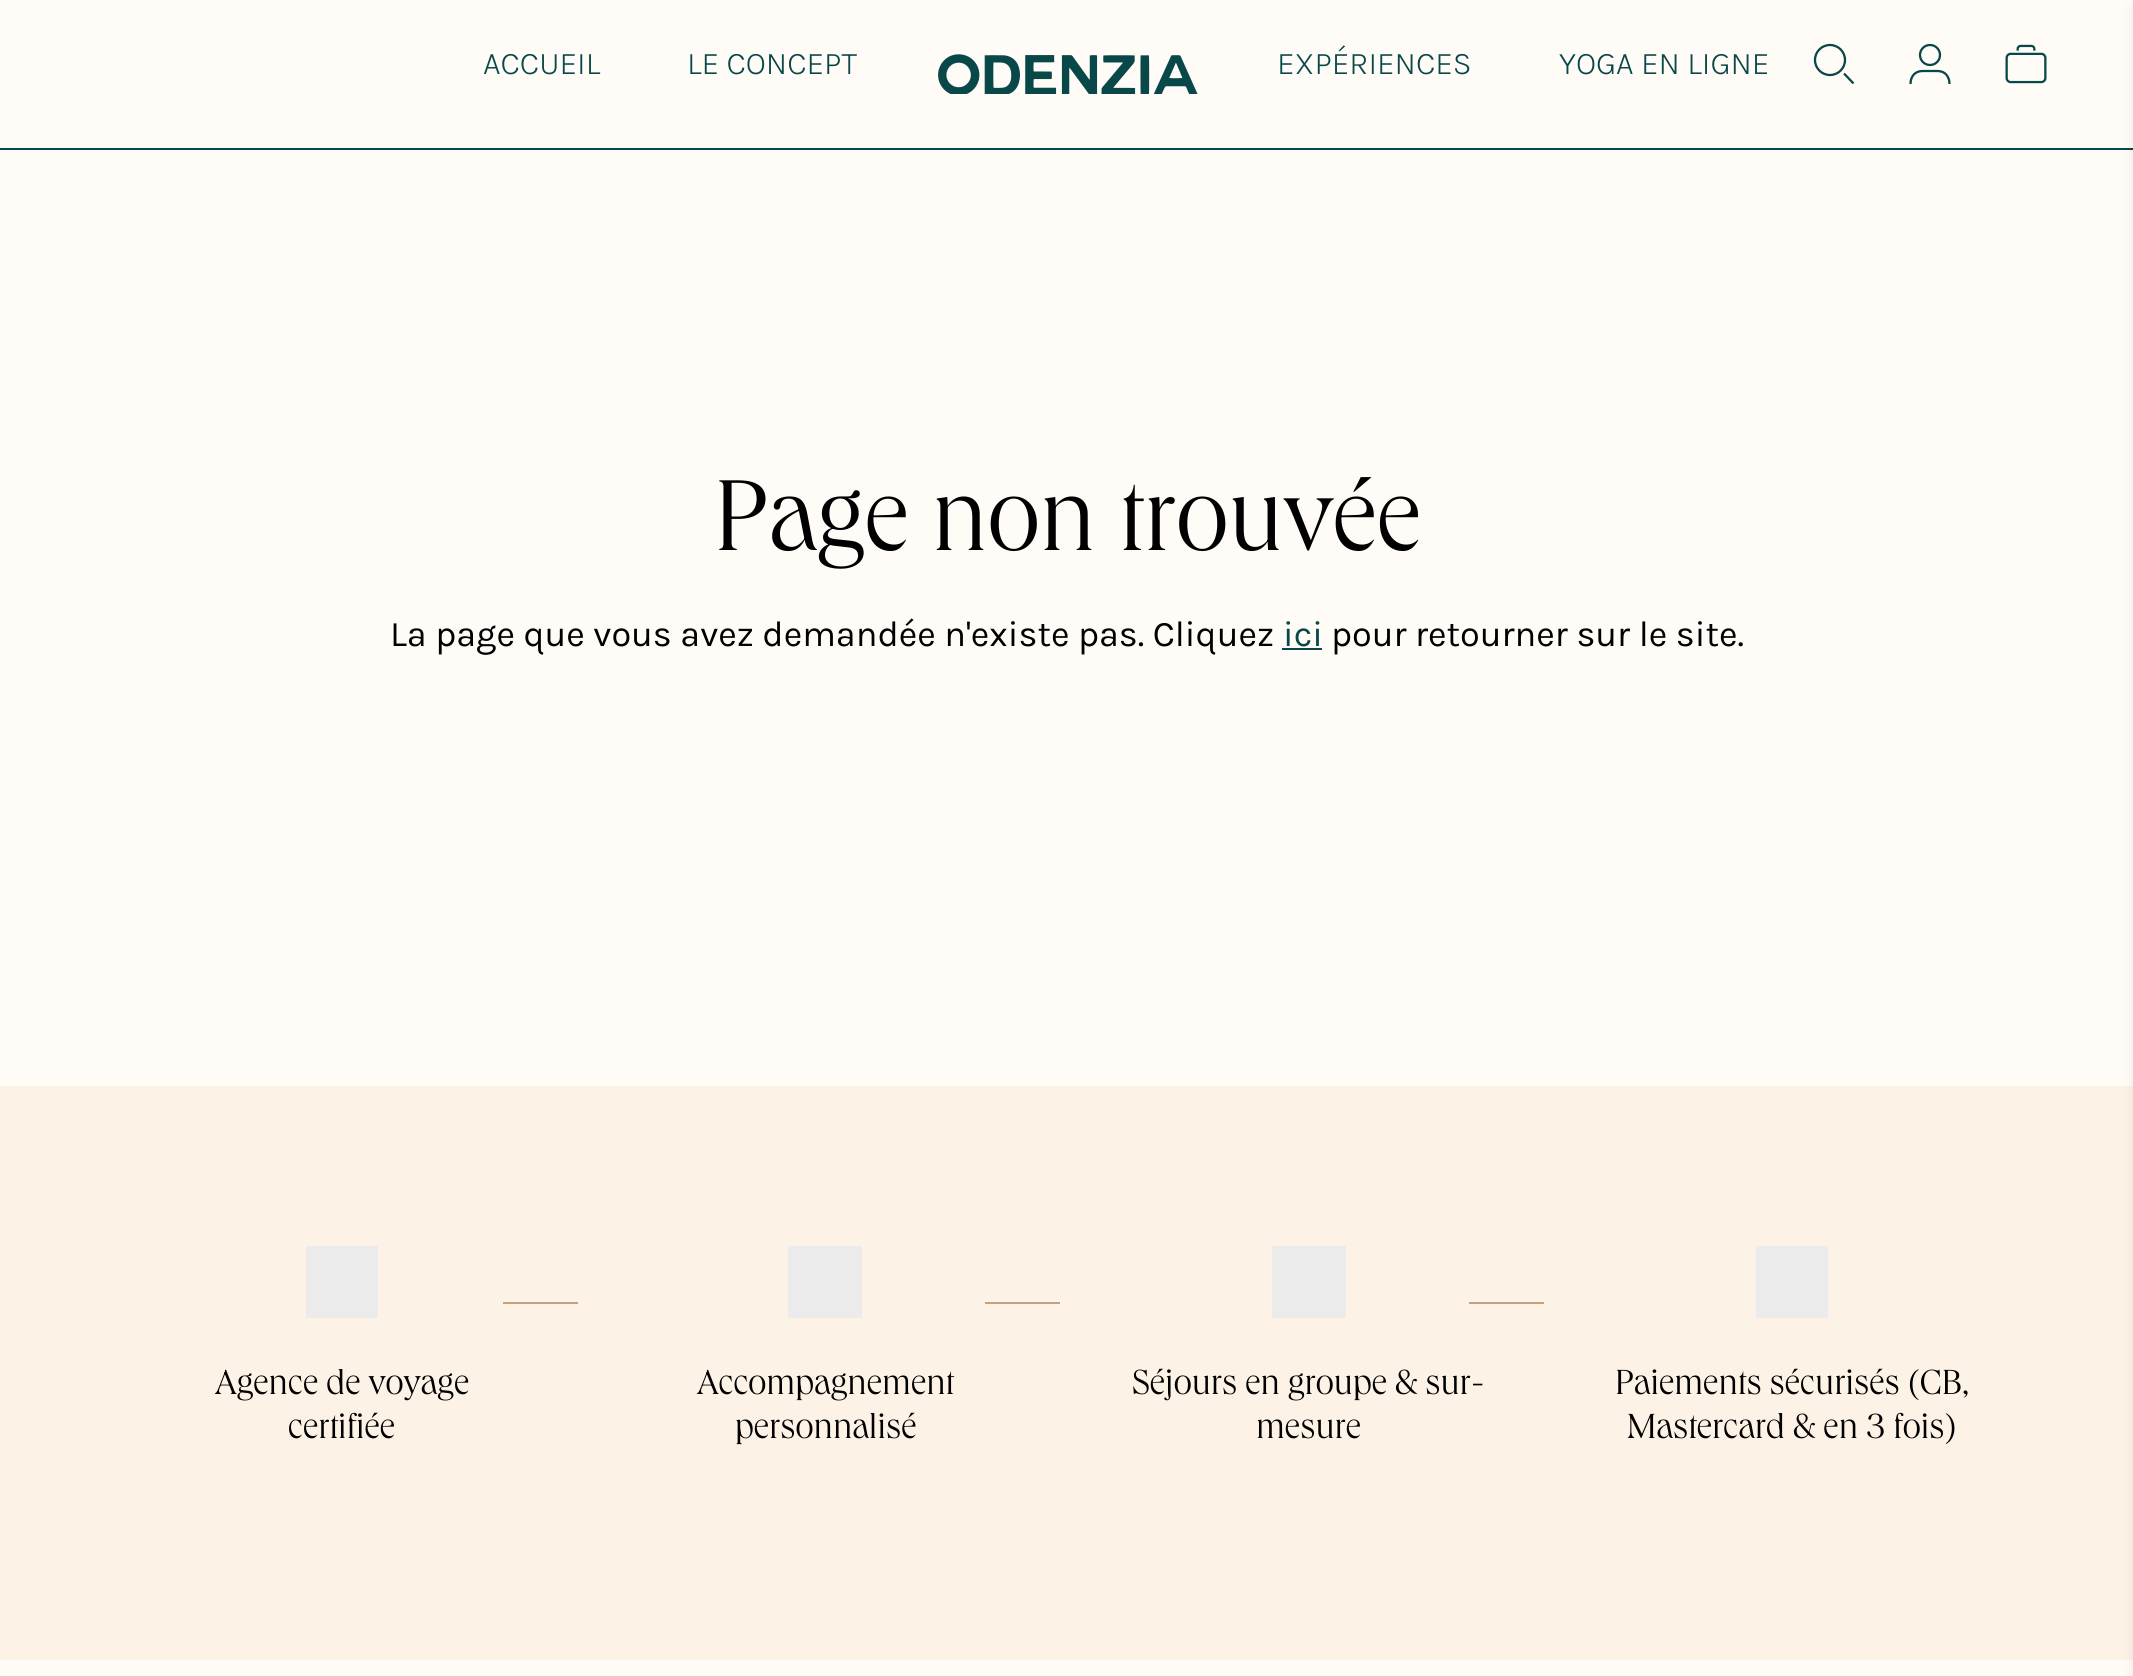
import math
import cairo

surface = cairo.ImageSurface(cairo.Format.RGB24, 2133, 1676)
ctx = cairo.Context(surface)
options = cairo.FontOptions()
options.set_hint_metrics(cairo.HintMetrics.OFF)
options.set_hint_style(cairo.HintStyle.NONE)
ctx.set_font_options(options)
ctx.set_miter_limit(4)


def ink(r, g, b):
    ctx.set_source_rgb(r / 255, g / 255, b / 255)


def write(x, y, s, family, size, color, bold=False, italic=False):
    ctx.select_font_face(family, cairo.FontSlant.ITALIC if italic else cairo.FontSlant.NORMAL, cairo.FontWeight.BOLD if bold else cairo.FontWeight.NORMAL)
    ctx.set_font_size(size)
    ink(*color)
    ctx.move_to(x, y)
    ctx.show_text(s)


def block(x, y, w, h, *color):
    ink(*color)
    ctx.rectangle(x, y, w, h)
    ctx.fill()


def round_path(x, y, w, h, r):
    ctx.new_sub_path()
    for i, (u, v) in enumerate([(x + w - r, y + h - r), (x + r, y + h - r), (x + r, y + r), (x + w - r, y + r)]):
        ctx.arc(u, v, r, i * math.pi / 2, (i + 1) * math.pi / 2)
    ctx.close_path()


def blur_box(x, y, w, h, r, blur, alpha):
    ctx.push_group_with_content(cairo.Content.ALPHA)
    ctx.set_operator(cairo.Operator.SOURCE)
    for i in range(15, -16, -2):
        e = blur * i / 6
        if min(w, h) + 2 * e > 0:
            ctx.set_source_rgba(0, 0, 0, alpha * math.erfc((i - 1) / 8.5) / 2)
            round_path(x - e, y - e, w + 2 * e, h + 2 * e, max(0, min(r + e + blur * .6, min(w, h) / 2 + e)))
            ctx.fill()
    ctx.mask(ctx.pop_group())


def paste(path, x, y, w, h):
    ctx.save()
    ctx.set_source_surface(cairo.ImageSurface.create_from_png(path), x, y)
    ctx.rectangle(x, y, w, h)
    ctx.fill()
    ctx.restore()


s1 = dict(family="Karla Light", size=32, color=(9, 72, 73))
s2 = dict(family="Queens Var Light", size=104, color=(0, 0, 0))
s3 = dict(family="Karla", size=36, color=(0, 0, 0))
s4 = dict(family="Karla", size=36, color=(9, 72, 73))
s5 = dict(family="Queens Var Light", size=36, color=(0, 0, 0))

ink(255, 252, 248)
ctx.paint()
block(0, 148, 2133, 2, 9, 72, 73)
write(483, 74, "ACCUEIL", **s1)
write(687, 74, "LE CONCEPT", **s1)
paste("pic1.png", 938, 54, 260, 40)
write(1277, 74, "EXPÉRIENCES", **s1)
write(1559, 74, "YOGA EN LIGNE", **s1)
ctx.new_path()
ctx.arc(1830, 60, 15, 0, 2 * math.pi)
ctx.set_line_width(2.3)
ctx.stroke()
ctx.new_path()
ctx.move_to(1844, 73.5)
ctx.line_to(1853.5, 83.5)
ctx.stroke()
ctx.arc(1930, 55, 10, 0, 2 * math.pi)
ctx.stroke()
ctx.new_path()
ctx.move_to(1910.5, 84)
ctx.curve_to(1910.5, 77, 1914.5, 71, 1922.5, 71)
ctx.line_to(1937.5, 71)
ctx.curve_to(1945.5, 71, 1949.5, 77, 1949.5, 84)
ctx.stroke()
paste("pic2.png", 2005, 44, 42, 40)
block(0, 1086, 2133, 574, 252, 242, 229)
ink(0, 0, 0)
blur_box(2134, 8, 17, 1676, 0, 6, 0.1)
write(714, 550, "Page non trouvée", **s2)
write(390, 646, "La page que vous avez demandée n'existe pas. Cliquez", **s3)
write(1283, 646, "ici", **s4)
block(1282, 648, 40, 2, 9, 72, 73)
write(1331, 646, "pour retourner sur le site.", **s3)
block(306, 1246, 72, 72, 235, 235, 235)
block(503, 1302, 75, 2, 199, 161, 126)
write(215, 1394, "Agence de voyage", **s5)
write(288, 1438, "certifiée", **s5)
block(788, 1246, 74, 72, 235, 235, 235)
block(985, 1302, 75, 2, 199, 161, 126)
write(697, 1394, "Accompagnement", **s5)
write(735, 1438, "personnalisé", **s5)
block(1272, 1246, 74, 72, 235, 235, 235)
block(1469, 1302, 75, 2, 199, 161, 126)
write(1132, 1394, "Séjours en groupe & sur-", **s5)
write(1256, 1438, "mesure", **s5)
block(1756, 1246, 72, 72, 235, 235, 235)
write(1615, 1394, "Paiements sécurisés (CB,", **s5)
write(1627, 1438, "Mastercard & en 3 fois)", **s5)
surface.write_to_png("screenshot.png")
